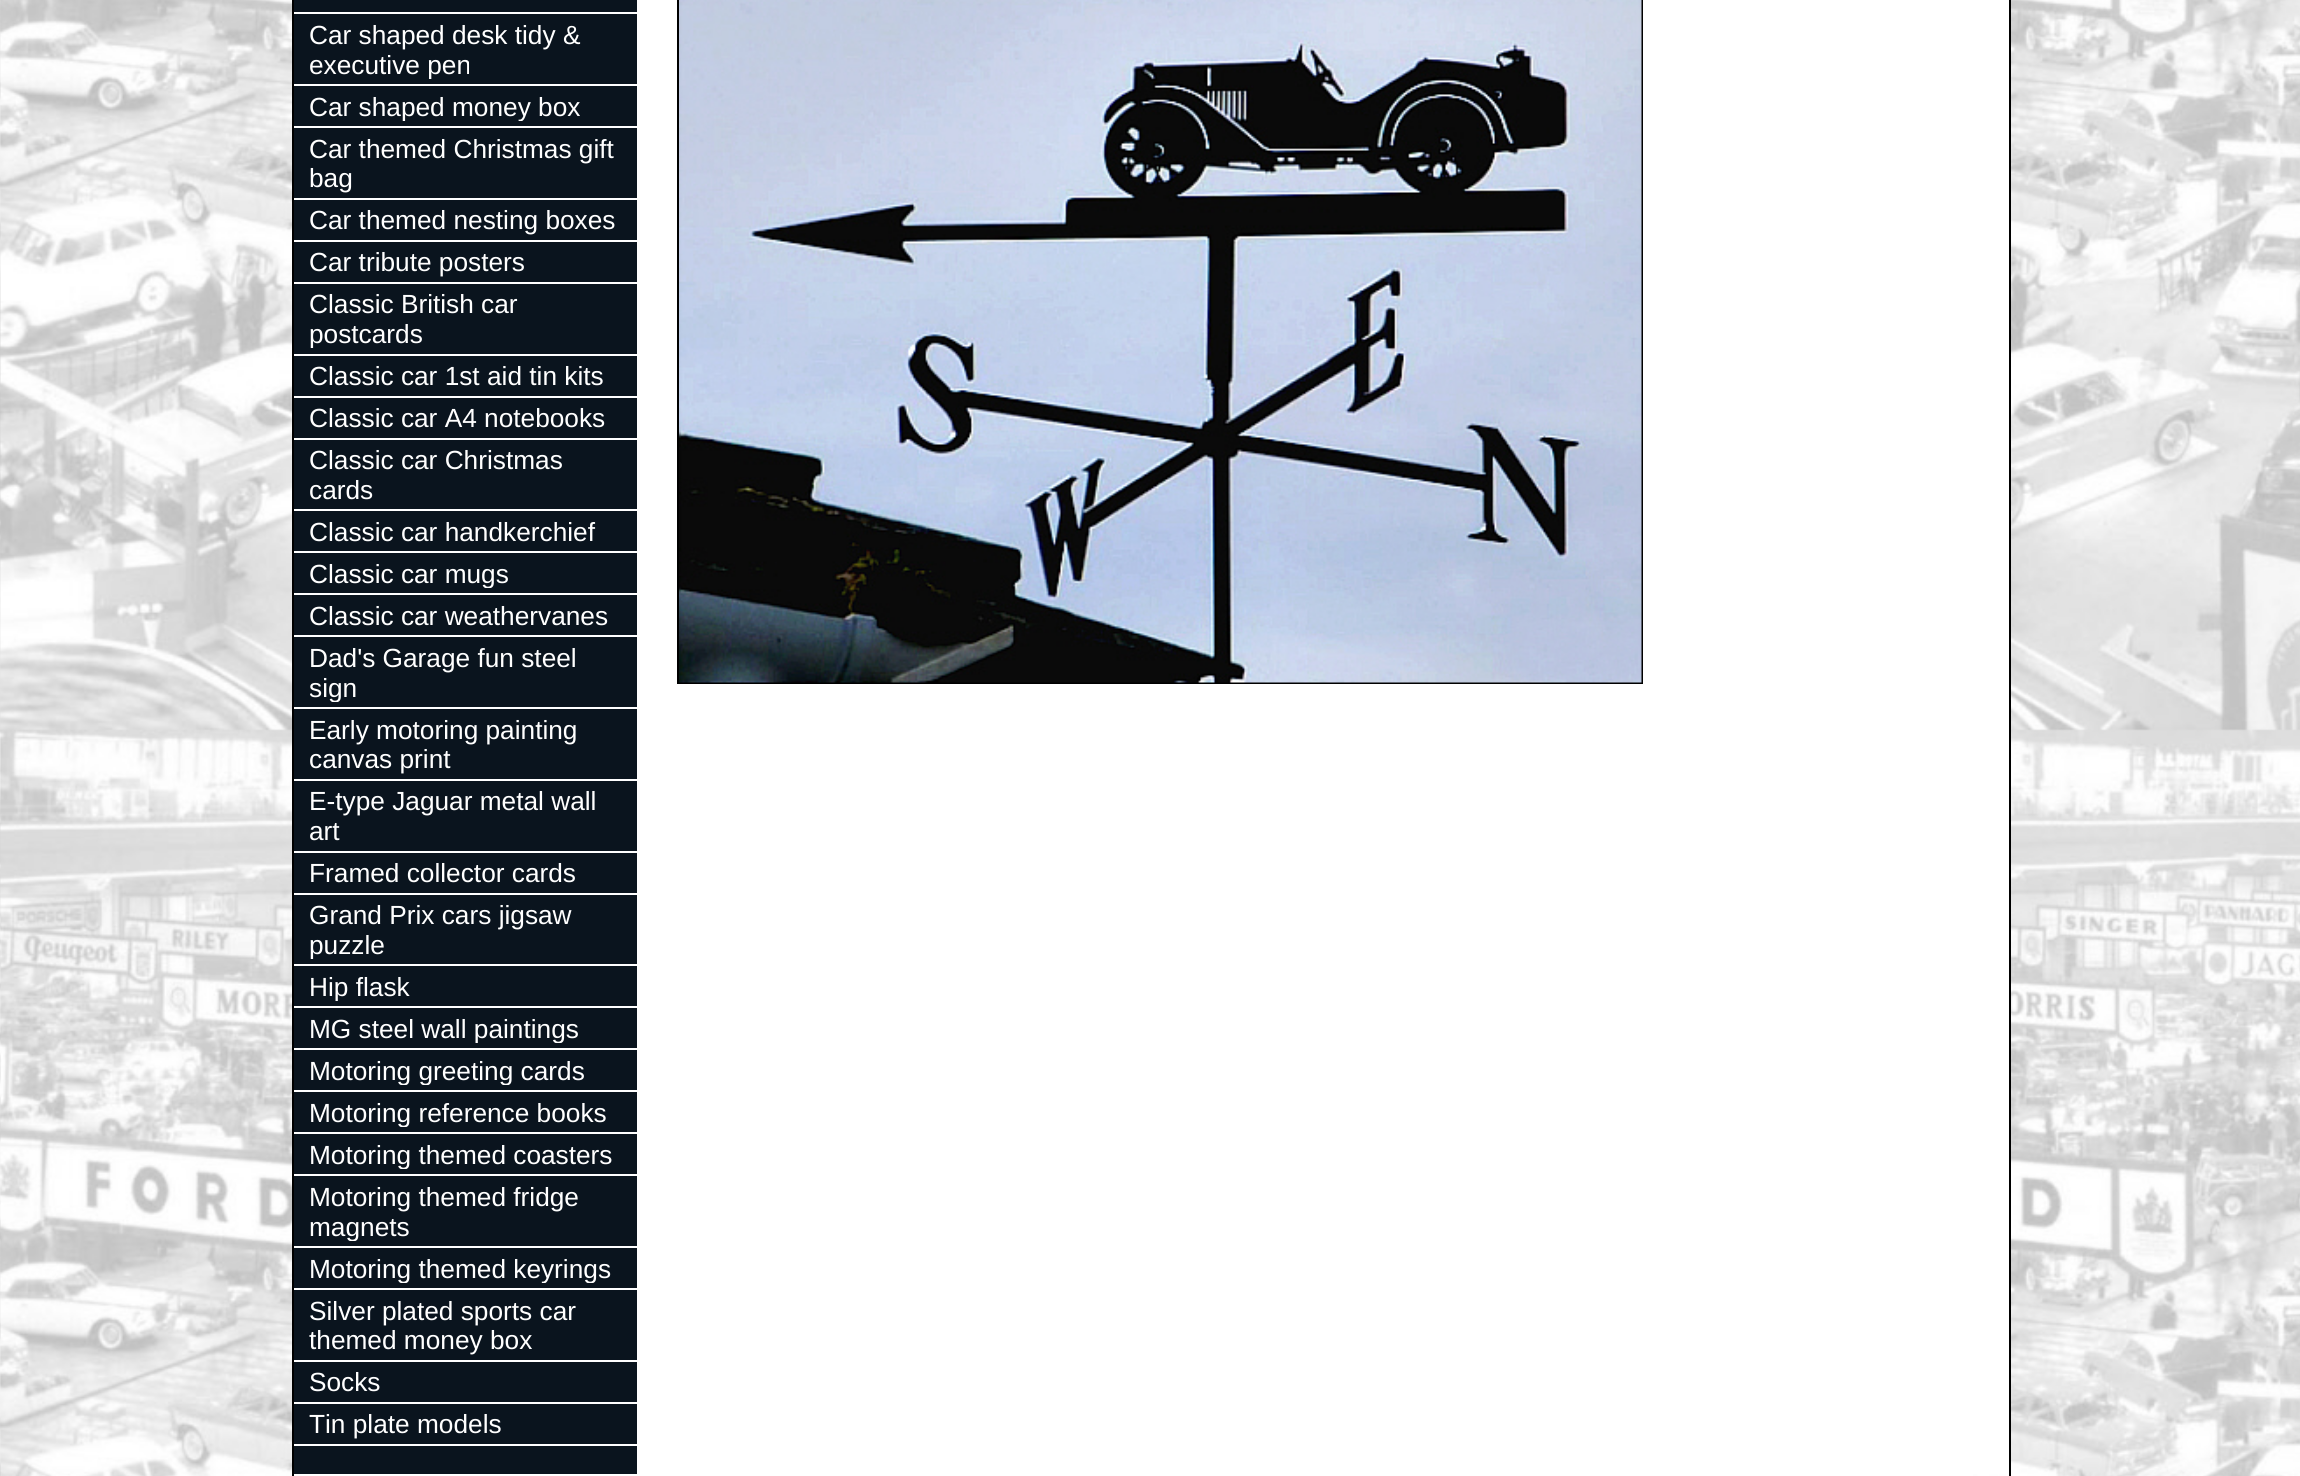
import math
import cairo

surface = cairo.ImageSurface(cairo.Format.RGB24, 2300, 1476)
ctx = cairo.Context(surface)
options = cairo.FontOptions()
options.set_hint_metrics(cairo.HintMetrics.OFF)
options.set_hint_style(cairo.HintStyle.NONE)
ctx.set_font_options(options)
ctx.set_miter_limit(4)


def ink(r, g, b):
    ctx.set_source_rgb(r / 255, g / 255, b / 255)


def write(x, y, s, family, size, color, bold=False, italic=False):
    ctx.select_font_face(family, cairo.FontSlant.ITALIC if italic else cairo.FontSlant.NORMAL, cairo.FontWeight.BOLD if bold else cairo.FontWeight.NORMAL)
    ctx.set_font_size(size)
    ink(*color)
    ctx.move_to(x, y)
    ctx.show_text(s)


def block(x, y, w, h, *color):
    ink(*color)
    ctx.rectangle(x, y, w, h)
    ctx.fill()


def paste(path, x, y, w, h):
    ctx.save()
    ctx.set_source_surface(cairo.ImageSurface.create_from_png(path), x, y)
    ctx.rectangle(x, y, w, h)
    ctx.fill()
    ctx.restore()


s1 = dict(family="Liberation Sans", size=26.25, color=(255, 255, 255))

ink(255, 255, 255)
ctx.paint()
paste("pic1.png", 0, 0, 2300, 1476)
ctx.rectangle(293, -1, 1717, 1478)
ink(0, 0, 0)
ctx.stroke()
block(294, 1456, 343, 18, 10, 20, 30)
block(294, 0, 343, 12, 10, 20, 30)
block(294, 14, 343, 70, 10, 20, 30)
block(294, 12, 343, 2, 255, 255, 255)
write(309, 44, "Car shaped desk tidy &", **s1)
ctx.save()
ctx.rectangle(310, 19, 311, 60)
ctx.clip()
write(309, 74, "executive pen", **s1)
ctx.restore()
block(294, 86, 343, 40, 10, 20, 30)
block(294, 84, 343, 2, 255, 255, 255)
ctx.save()
ctx.rectangle(310, 91, 311, 30)
ctx.clip()
write(309, 116, "Car shaped money box", **s1)
ctx.restore()
block(294, 128, 343, 70, 10, 20, 30)
block(294, 126, 343, 2, 255, 255, 255)
write(309, 158, "Car themed Christmas gift", **s1)
write(309, 187, "bag", **s1)
block(294, 200, 343, 40, 10, 20, 30)
block(294, 198, 343, 2, 255, 255, 255)
write(309, 229, "Car themed nesting boxes", **s1)
block(294, 242, 343, 40, 10, 20, 30)
block(294, 240, 343, 2, 255, 255, 255)
write(309, 271, "Car tribute posters", **s1)
block(294, 284, 343, 70, 10, 20, 30)
block(294, 282, 343, 2, 255, 255, 255)
write(309, 313, "Classic British car", **s1)
ctx.save()
ctx.rectangle(310, 289, 311, 59)
ctx.clip()
write(309, 343, "postcards", **s1)
ctx.restore()
block(294, 356, 343, 40, 10, 20, 30)
block(305, 354, 332, 2, 255, 255, 255)
write(309, 385, "Classic car 1st aid tin kits", **s1)
block(294, 398, 343, 40, 10, 20, 30)
block(294, 396, 343, 2, 255, 255, 255)
write(309, 427, "Classic car A4 notebooks", **s1)
block(294, 440, 343, 69, 10, 20, 30)
block(294, 438, 343, 2, 255, 255, 255)
write(309, 469, "Classic car Christmas", **s1)
write(309, 499, "cards", **s1)
block(294, 511, 343, 40, 10, 20, 30)
block(294, 509, 343, 2, 255, 255, 255)
write(309, 541, "Classic car handkerchief", **s1)
block(294, 553, 343, 40, 10, 20, 30)
block(294, 551, 343, 2, 255, 255, 255)
ctx.save()
ctx.rectangle(310, 558, 311, 30)
ctx.clip()
write(309, 583, "Classic car mugs", **s1)
ctx.restore()
block(294, 595, 343, 40, 10, 20, 30)
block(294, 593, 343, 2, 255, 255, 255)
write(309, 625, "Classic car weathervanes", **s1)
block(294, 637, 343, 70, 10, 20, 30)
block(294, 635, 343, 2, 255, 255, 255)
write(309, 667, "Dad's Garage fun steel", **s1)
ctx.save()
ctx.rectangle(310, 642, 311, 60)
ctx.clip()
write(309, 697, "sign", **s1)
ctx.restore()
block(294, 709, 343, 70, 10, 20, 30)
block(294, 707, 343, 2, 255, 255, 255)
write(309, 739, "Early motoring painting", **s1)
write(309, 768, "canvas print", **s1)
block(294, 781, 343, 70, 10, 20, 30)
block(303, 779, 334, 2, 255, 255, 255)
write(309, 810, "E-type Jaguar metal wall", **s1)
write(309, 840, "art", **s1)
block(294, 853, 343, 40, 10, 20, 30)
block(294, 851, 343, 2, 255, 255, 255)
write(309, 882, "Framed collector cards", **s1)
block(294, 895, 343, 69, 10, 20, 30)
block(294, 893, 343, 2, 255, 255, 255)
write(309, 924, "Grand Prix cars jigsaw", **s1)
ctx.save()
ctx.rectangle(310, 900, 311, 59)
ctx.clip()
write(309, 954, "puzzle", **s1)
ctx.restore()
block(294, 966, 343, 40, 10, 20, 30)
block(294, 964, 343, 2, 255, 255, 255)
ctx.save()
ctx.rectangle(310, 971, 311, 30)
ctx.clip()
write(309, 996, "Hip flask", **s1)
ctx.restore()
block(294, 1008, 343, 40, 10, 20, 30)
block(294, 1006, 343, 2, 255, 255, 255)
ctx.save()
ctx.rectangle(310, 1013, 311, 30)
ctx.clip()
write(309, 1038, "MG steel wall paintings", **s1)
ctx.restore()
block(294, 1050, 343, 40, 10, 20, 30)
block(294, 1048, 343, 2, 255, 255, 255)
ctx.save()
ctx.rectangle(310, 1055, 311, 30)
ctx.clip()
write(309, 1080, "Motoring greeting cards", **s1)
ctx.restore()
block(294, 1092, 343, 40, 10, 20, 30)
block(294, 1090, 343, 2, 255, 255, 255)
ctx.save()
ctx.rectangle(310, 1097, 311, 30)
ctx.clip()
write(309, 1122, "Motoring reference books", **s1)
ctx.restore()
block(294, 1134, 343, 40, 10, 20, 30)
block(294, 1132, 343, 2, 255, 255, 255)
ctx.save()
ctx.rectangle(310, 1139, 311, 30)
ctx.clip()
write(309, 1164, "Motoring themed coasters", **s1)
ctx.restore()
block(294, 1176, 343, 70, 10, 20, 30)
block(305, 1174, 332, 2, 255, 255, 255)
write(309, 1206, "Motoring themed fridge", **s1)
ctx.save()
ctx.rectangle(310, 1181, 311, 60)
ctx.clip()
write(309, 1236, "magnets", **s1)
ctx.restore()
block(294, 1248, 343, 40, 10, 20, 30)
block(294, 1246, 343, 2, 255, 255, 255)
ctx.save()
ctx.rectangle(310, 1253, 311, 30)
ctx.clip()
write(309, 1278, "Motoring themed keyrings", **s1)
ctx.restore()
block(294, 1290, 343, 70, 10, 20, 30)
block(294, 1288, 343, 2, 255, 255, 255)
write(309, 1320, "Silver plated sports car", **s1)
write(309, 1349, "themed money box", **s1)
block(294, 1362, 343, 40, 10, 20, 30)
block(294, 1360, 343, 2, 255, 255, 255)
write(309, 1391, "Socks", **s1)
block(294, 1404, 343, 40, 10, 20, 30)
block(294, 1402, 343, 2, 255, 255, 255)
write(309, 1433, "Tin plate models", **s1)
block(294, 1446, 343, 10, 10, 20, 30)
block(294, 1444, 343, 2, 255, 255, 255)
block(637, 0, 1372, 1474, 255, 255, 255)
ctx.rectangle(678, -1, 964, 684)
ink(0, 0, 0)
ctx.stroke()
paste("pic2.png", 679, 0, 963, 683)
block(294, 1474, 1679, 2, 255, 255, 255)
surface.write_to_png("screenshot.png")
